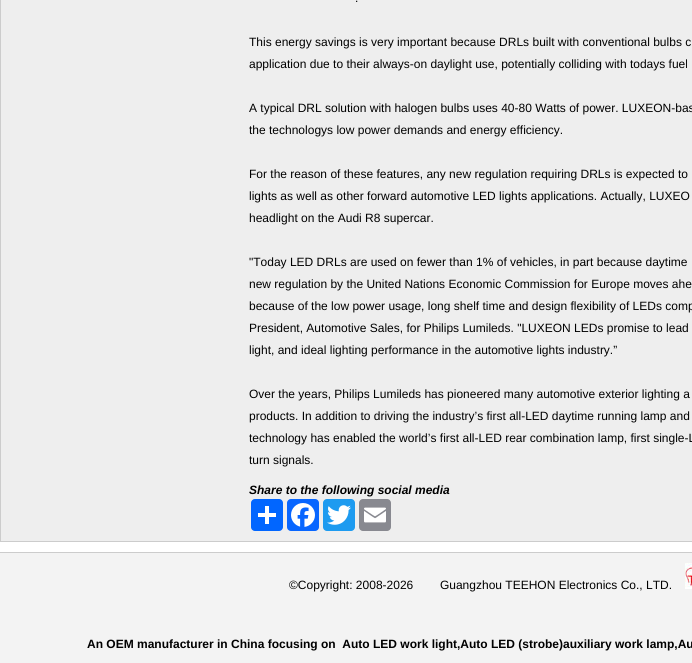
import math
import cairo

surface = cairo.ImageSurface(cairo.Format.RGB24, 692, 663)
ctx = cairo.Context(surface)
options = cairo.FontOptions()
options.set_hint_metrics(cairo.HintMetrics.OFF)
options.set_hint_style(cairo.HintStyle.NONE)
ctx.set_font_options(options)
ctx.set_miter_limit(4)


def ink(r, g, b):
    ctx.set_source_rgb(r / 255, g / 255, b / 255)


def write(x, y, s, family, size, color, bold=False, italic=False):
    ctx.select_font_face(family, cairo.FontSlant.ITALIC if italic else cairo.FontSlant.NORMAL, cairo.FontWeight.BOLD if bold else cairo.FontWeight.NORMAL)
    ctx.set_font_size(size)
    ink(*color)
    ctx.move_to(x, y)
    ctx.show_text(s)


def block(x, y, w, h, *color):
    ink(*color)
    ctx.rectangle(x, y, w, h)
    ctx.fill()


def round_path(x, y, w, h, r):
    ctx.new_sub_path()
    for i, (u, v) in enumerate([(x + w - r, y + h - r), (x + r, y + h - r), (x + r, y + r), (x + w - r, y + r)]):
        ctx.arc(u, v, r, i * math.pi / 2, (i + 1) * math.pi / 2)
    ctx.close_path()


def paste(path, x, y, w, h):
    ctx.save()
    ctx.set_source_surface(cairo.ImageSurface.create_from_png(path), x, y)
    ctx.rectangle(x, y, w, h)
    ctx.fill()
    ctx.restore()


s1 = dict(family="Liberation Sans", size=12, color=(0, 0, 0))
s2 = dict(family="Liberation Sans", size=12, color=(0, 0, 0), bold=True, italic=True)
s3 = dict(family="Liberation Sans", size=12, color=(0, 0, 0), bold=True)

ink(255, 255, 255)
ctx.paint()
ink(238, 238, 238)
ctx.rectangle(0.5, -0.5, 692, 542)
ctx.fill_preserve()
ink(204, 204, 204)
ctx.set_line_width(1)
ctx.stroke()
write(355, 2, ".", **s1)
write(249, 46, "This energy savings is very important because DRLs built with conventional bulbs c", **s1)
write(249, 68, "application due to their always-on daylight use, potentially colliding with todays fuel", **s1)
write(249, 112, "A typical DRL solution with halogen bulbs uses 40-80 Watts of power. LUXEON-bas", **s1)
write(249, 134, "the technologys low power demands and energy efficiency.", **s1)
write(249, 178, "For the reason of these features, any new regulation requiring DRLs is expected to", **s1)
write(249, 200, "lights as well as other forward automotive LED lights applications. Actually, LUXEO", **s1)
write(249, 222, "headlight on the Audi R8 supercar.", **s1)
write(249, 266, "\"Today LED DRLs are used on fewer than 1% of vehicles, in part because daytime", **s1)
write(249, 288, "new regulation by the United Nations Economic Commission for Europe moves ahe", **s1)
write(249, 310, "because of the low power usage, long shelf time and design flexibility of LEDs comp", **s1)
write(249, 332, "President, Automotive Sales, for Philips Lumileds. \"LUXEON LEDs promise to lead", **s1)
write(249, 354, "light, and ideal lighting performance in the automotive lights industry.”", **s1)
write(249, 398, "Over the years, Philips Lumileds has pioneered many automotive exterior lighting a", **s1)
write(249, 420, "products. In addition to driving the industry’s first all-LED daytime running lamp and", **s1)
write(249, 442, "technology has enabled the world’s first all-LED rear combination lamp, first single-L", **s1)
write(249, 464, "turn signals.", **s1)
write(249, 494, "Share to the following social media", **s2)
ink(1, 102, 255)
round_path(251, 499, 32, 32, 4)
ctx.fill()
block(265, 506, 4, 18, 255, 255, 255)
block(258, 513, 18, 4, 255, 255, 255)
ink(8, 102, 255)
round_path(287, 499, 32, 32, 4)
ctx.fill()
paste("pic1.png", 291, 503, 24, 24)
ink(29, 155, 240)
round_path(323, 499, 32, 32, 4)
ctx.fill()
paste("pic2.png", 327, 505, 24, 20)
ink(136, 137, 144)
round_path(359, 499, 32, 32, 4)
ctx.fill()
paste("pic3.png", 364, 507, 22, 16)
block(0, 553, 692, 110, 243, 243, 243)
block(0, 552, 692, 1, 204, 204, 204)
write(289, 589, "©Copyright: 2008-2026        Guangzhou TEEHON Electronics Co., LTD.", **s1)
paste("pic4.png", 685, 563, 7, 26)
write(87, 648, "An OEM manufacturer in China focusing on  Auto LED work light,Auto LED (strobe)auxiliary work lamp,Au", **s3)
surface.write_to_png("screenshot.png")
